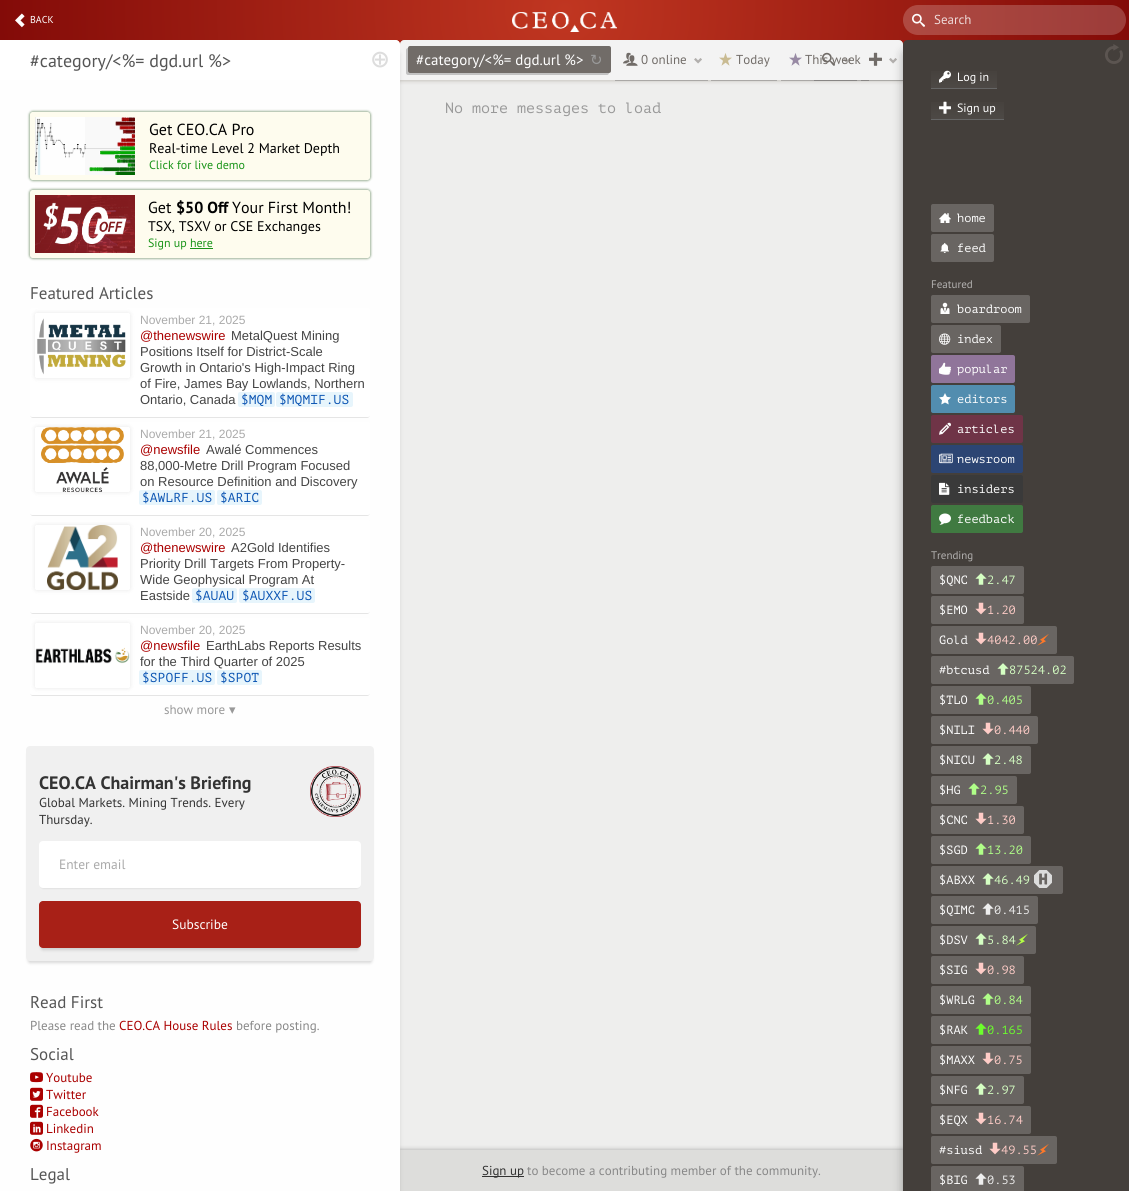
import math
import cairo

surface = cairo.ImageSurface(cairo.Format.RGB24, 1129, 1191)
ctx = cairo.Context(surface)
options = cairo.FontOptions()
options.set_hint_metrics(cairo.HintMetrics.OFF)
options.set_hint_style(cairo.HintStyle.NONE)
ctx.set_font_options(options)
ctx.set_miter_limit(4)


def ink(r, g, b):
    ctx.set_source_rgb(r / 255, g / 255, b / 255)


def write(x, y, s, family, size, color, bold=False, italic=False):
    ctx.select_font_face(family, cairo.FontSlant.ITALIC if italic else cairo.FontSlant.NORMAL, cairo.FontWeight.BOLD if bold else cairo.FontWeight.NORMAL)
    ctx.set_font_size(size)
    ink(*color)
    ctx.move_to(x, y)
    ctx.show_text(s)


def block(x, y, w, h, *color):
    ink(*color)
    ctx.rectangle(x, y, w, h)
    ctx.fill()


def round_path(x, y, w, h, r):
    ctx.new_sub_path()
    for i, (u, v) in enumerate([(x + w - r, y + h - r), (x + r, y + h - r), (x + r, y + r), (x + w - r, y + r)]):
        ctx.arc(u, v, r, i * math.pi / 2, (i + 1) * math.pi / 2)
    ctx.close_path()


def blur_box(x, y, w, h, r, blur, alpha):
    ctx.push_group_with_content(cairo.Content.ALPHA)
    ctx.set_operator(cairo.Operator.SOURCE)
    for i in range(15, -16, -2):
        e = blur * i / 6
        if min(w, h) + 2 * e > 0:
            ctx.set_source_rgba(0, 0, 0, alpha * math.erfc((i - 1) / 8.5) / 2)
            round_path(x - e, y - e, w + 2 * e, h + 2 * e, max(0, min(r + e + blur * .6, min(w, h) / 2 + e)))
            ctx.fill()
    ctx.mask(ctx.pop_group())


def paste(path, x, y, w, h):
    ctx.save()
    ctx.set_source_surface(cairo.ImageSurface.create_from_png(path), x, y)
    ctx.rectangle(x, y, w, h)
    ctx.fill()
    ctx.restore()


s1 = dict(family="PT Sans", size=10, color=(255, 255, 255))
s2 = dict(family="PT Sans", size=13, color=(238, 218, 217))
s3 = dict(family="PT Sans", size=18, color=(85, 85, 85))
s4 = dict(family="DejaVu Sans Mono", size=30, color=(221, 221, 221))
s5 = dict(family="PT Sans", size=16, color=(0, 0, 0))
s6 = dict(family="PT Sans", size=14, color=(0, 0, 0))
s7 = dict(family="PT Sans", size=12, color=(25, 148, 24))
s8 = dict(family="PT Sans", size=16, color=(0, 0, 0), bold=True)
s9 = dict(family="PT Sans", size=17, color=(85, 85, 85))
s10 = dict(family="Liberation Sans", size=12, color=(170, 170, 170))
s11 = dict(family="Liberation Sans", size=13, color=(170, 0, 0))
s12 = dict(family="Liberation Sans", size=13, color=(68, 68, 68))
s13 = dict(family="PT Mono", size=13, color=(12, 85, 179))
s14 = dict(family="PT Sans", size=13, color=(153, 153, 153))
s15 = dict(family="DejaVu Sans", size=13, color=(153, 153, 153))
s16 = dict(family="PT Sans", size=18, color=(51, 51, 51), bold=True)
s17 = dict(family="PT Sans", size=13, color=(51, 51, 51))
s18 = dict(family="PT Sans", size=13.5, color=(170, 170, 170))
s19 = dict(family="PT Sans", size=13.5, color=(255, 255, 255))
s20 = dict(family="PT Sans", size=13, color=(136, 136, 136))
s21 = dict(family="PT Sans", size=13, color=(170, 0, 0))
s22 = dict(family="PT Sans", size=15, color=(255, 255, 255))
s23 = dict(family="DejaVu Sans", size=15, color=(153, 153, 153))
s24 = dict(family="PT Sans", size=13, color=(113, 108, 104))
s25 = dict(family="PT Mono", size=15, color=(153, 153, 153))
s26 = dict(family="PT Sans", size=12, color=(255, 255, 255))
s27 = dict(family="PT Mono", size=12, color=(255, 255, 255))
s28 = dict(family="PT Sans", size=11, color=(180, 178, 177))
s29 = dict(family="PT Mono", size=12, color=(213, 255, 195))
s30 = dict(family="PT Mono", size=12, color=(255, 204, 199))
s31 = dict(family="PT Mono", size=12, color=(176, 255, 136))
s32 = dict(family="PT Mono", size=12, color=(238, 238, 238))
s33 = dict(family="PT Mono", size=12, color=(108, 255, 44))

ink(255, 255, 255)
ctx.paint()
gradient = cairo.RadialGradient(565, 10, 0, 565, 10, 565)
gradient.add_color_stop_rgba(0, 0.753, 0.212, 0.129, 1)
gradient.add_color_stop_rgba(1, 0.514, 0.043, 0.031, 1)
ctx.set_source(gradient)
ctx.rectangle(0, 0, 1129, 45)
ctx.fill()
paste("pic1.png", 15, 13, 10, 15)
write(30, 23, "BACK", **s1)
ink(238, 238, 237)
ctx.new_path()
ctx.move_to(405, 40)
ctx.line_to(898, 40)
ctx.curve_to(901, 40, 903, 42, 903, 45)
ctx.line_to(903, 1191)
ctx.line_to(400, 1191)
ctx.line_to(400, 45)
ctx.curve_to(400, 42, 402, 40, 405, 40)
ctx.close_path()
ctx.fill()
ctx.save()
ctx.new_path()
ctx.move_to(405, 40)
ctx.line_to(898, 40)
ctx.curve_to(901, 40, 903, 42, 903, 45)
ctx.line_to(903, 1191)
ctx.line_to(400, 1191)
ctx.line_to(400, 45)
ctx.curve_to(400, 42, 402, 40, 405, 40)
ctx.close_path()
ctx.clip()
ink(40, 20, 0)
blur_box(400, 40, 503, 40, 0, 2.5, 0.3)
ctx.restore()
paste("pic2.png", 512, 12, 105, 20)
ink(243, 243, 243)
ctx.new_path()
ctx.move_to(405, 40)
ctx.line_to(898, 40)
ctx.curve_to(901, 40, 903, 42, 903, 45)
ctx.line_to(903, 80)
ctx.line_to(400, 80)
ctx.line_to(400, 45)
ctx.curve_to(400, 42, 402, 40, 405, 40)
ctx.close_path()
ctx.fill()
block(781, 80, 88, 1, 170, 168, 166)
ctx.set_source_rgba(0, 0, 0, 0.2)
ctx.rectangle(861, 80, 42, 1)
ctx.fill()
paste("pic17.png", 889, 58, 8, 6)
ink(0, 0, 0)
blur_box(400, 1150, 503, 41, 0, 2.5, 0.3)
block(400, 1150, 503, 41, 221, 221, 219)
ink(0, 0, 0)
blur_box(903, 50, 226, 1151, 5, 5, 0.3)
ctx.set_source_rgba(1, 1, 1, 0.2)
round_path(903, 5, 223, 30, 15)
ctx.fill()
paste("pic3.png", 912, 13, 13, 14)
write(934, 24, "Search", **s2)
ink(194, 194, 194)
ctx.new_path()
ctx.move_to(408, 48)
ctx.curve_to(407, 48, 406, 49, 406, 50)
ctx.line_to(406, 73)
ctx.curve_to(406, 74, 407, 75, 408, 75)
ctx.line_to(607, 75)
ctx.curve_to(608, 75, 609, 74, 609, 73)
ctx.line_to(410, 73)
ctx.curve_to(409, 73, 408, 72, 408, 71)
ctx.close_path()
ctx.fill()
ink(0, 0, 0)
blur_box(0, 50, 400, 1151, 5, 2, 0.1)
ink(254, 254, 254)
ctx.new_path()
ctx.move_to(0, 40)
ctx.line_to(395, 40)
ctx.curve_to(398, 40, 400, 42, 400, 45)
ctx.line_to(400, 1191)
ctx.line_to(0, 1191)
ctx.close_path()
ctx.fill()
ink(255, 255, 255)
ctx.new_path()
ctx.move_to(0, 40)
ctx.line_to(395, 40)
ctx.curve_to(398, 40, 400, 42, 400, 45)
ctx.line_to(400, 80)
ctx.line_to(0, 80)
ctx.close_path()
ctx.fill()
write(30, 67, "#category/<%= dgd.url %>", **s3)
write(371, 69, "⊕", **s4)
ctx.save()
ctx.set_fill_rule(cairo.FillRule.EVEN_ODD)
ctx.new_path()
ctx.move_to(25, 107)
ctx.line_to(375, 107)
ctx.line_to(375, 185)
ctx.line_to(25, 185)
ctx.close_path()
ctx.move_to(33, 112)
ctx.line_to(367, 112)
ctx.curve_to(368.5, 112, 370, 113.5, 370, 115)
ctx.line_to(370, 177)
ctx.curve_to(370, 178.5, 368.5, 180, 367, 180)
ctx.line_to(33, 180)
ctx.curve_to(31.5, 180, 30, 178.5, 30, 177)
ctx.line_to(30, 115)
ctx.curve_to(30, 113.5, 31.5, 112, 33, 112)
ctx.close_path()
ctx.clip()
ink(21, 72, 7)
blur_box(29, 111, 342, 70, 4, 1, 0.4)
ctx.restore()
ctx.set_source_rgba(1, 0.98, 0.839, 0.39)
round_path(30, 112, 340, 68, 3)
ctx.fill()
paste("pic4.png", 35, 117, 100, 58)
write(149, 135, "Get CEO.CA Pro", **s5)
write(149, 153, "Real-time Level 2 Market Depth", **s6)
write(149, 169, "Click for live demo", **s7)
ctx.save()
ctx.set_fill_rule(cairo.FillRule.EVEN_ODD)
ctx.new_path()
ctx.move_to(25, 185)
ctx.line_to(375, 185)
ctx.line_to(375, 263)
ctx.line_to(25, 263)
ctx.close_path()
ctx.move_to(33, 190)
ctx.line_to(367, 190)
ctx.curve_to(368.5, 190, 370, 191.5, 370, 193)
ctx.line_to(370, 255)
ctx.curve_to(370, 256.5, 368.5, 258, 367, 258)
ctx.line_to(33, 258)
ctx.curve_to(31.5, 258, 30, 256.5, 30, 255)
ctx.line_to(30, 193)
ctx.curve_to(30, 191.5, 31.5, 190, 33, 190)
ctx.close_path()
ctx.clip()
ink(21, 72, 7)
blur_box(29, 189, 342, 70, 4, 1, 0.4)
ctx.restore()
ctx.set_source_rgba(1, 0.98, 0.839, 0.39)
round_path(30, 190, 340, 68, 3)
ctx.fill()
paste("pic5.png", 35, 195, 100, 58)
write(148, 213, "Get", **s5)
write(176, 213, "$50 Off", **s8)
write(232, 213, "Your First Month!", **s5)
write(148, 231, "TSX, TSXV or CSE Exchanges", **s6)
write(148, 247, "Sign up here", **s7)
block(190, 248, 23, 1, 25, 148, 24)
write(30, 299, "Featured Articles", **s9)
ink(229, 229, 229)
ctx.new_path()
ctx.move_to(30, 414)
ctx.curve_to(30, 416, 31, 418, 33, 418)
ctx.line_to(367, 418)
ctx.curve_to(369, 418, 370, 416, 370, 414)
ctx.curve_to(370, 416, 369, 417, 367, 417)
ctx.line_to(33, 417)
ctx.curve_to(31, 417, 30, 416, 30, 414)
ctx.close_path()
ctx.fill()
ink(255, 255, 255)
round_path(30, 308, 340, 109, 3)
ctx.fill()
ctx.save()
ctx.set_fill_rule(cairo.FillRule.EVEN_ODD)
ctx.new_path()
ctx.move_to(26, 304)
ctx.line_to(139, 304)
ctx.line_to(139, 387)
ctx.line_to(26, 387)
ctx.close_path()
ctx.move_to(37, 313)
ctx.line_to(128, 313)
ctx.curve_to(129, 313, 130, 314, 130, 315)
ctx.line_to(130, 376)
ctx.curve_to(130, 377, 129, 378, 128, 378)
ctx.line_to(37, 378)
ctx.curve_to(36, 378, 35, 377, 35, 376)
ctx.line_to(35, 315)
ctx.curve_to(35, 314, 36, 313, 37, 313)
ctx.close_path()
ctx.clip()
ink(0, 0, 0)
blur_box(35, 313, 95, 65, 2, 2.5, 0.1)
ctx.restore()
paste("pic6.png", 37, 318, 89, 57)
write(140, 324, "November 21, 2025", **s10)
write(140, 340, "@thenewswire", **s11)
write(231, 340, "MetalQuest Mining", **s12)
write(140, 356, "Positions Itself for District-Scale", **s12)
write(140, 372, "Growth in Ontario's High-Impact Ring", **s12)
write(140, 388, "of Fire, James Bay Lowlands, Northern", **s12)
write(140, 404, "Ontario, Canada", **s12)
ink(231, 245, 252)
round_path(238, 392, 37, 15, 2)
ctx.fill()
write(241, 404, "$MQM", **s13)
ink(231, 245, 252)
round_path(276, 392, 77, 15, 2)
ctx.fill()
write(279, 404, "$MQMIF.US", **s13)
ink(229, 229, 229)
ctx.new_path()
ctx.move_to(30, 512)
ctx.curve_to(30, 514, 31, 516, 33, 516)
ctx.line_to(367, 516)
ctx.curve_to(369, 516, 370, 514, 370, 512)
ctx.curve_to(370, 514, 369, 515, 367, 515)
ctx.line_to(33, 515)
ctx.curve_to(31, 515, 30, 514, 30, 512)
ctx.close_path()
ctx.fill()
ink(255, 255, 255)
round_path(30, 422, 340, 93, 3)
ctx.fill()
ctx.save()
ctx.set_fill_rule(cairo.FillRule.EVEN_ODD)
ctx.new_path()
ctx.move_to(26, 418)
ctx.line_to(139, 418)
ctx.line_to(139, 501)
ctx.line_to(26, 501)
ctx.close_path()
ctx.move_to(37, 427)
ctx.line_to(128, 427)
ctx.curve_to(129, 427, 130, 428, 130, 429)
ctx.line_to(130, 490)
ctx.curve_to(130, 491, 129, 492, 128, 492)
ctx.line_to(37, 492)
ctx.curve_to(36, 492, 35, 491, 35, 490)
ctx.line_to(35, 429)
ctx.curve_to(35, 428, 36, 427, 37, 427)
ctx.close_path()
ctx.clip()
ink(0, 0, 0)
blur_box(35, 427, 95, 65, 2, 2.5, 0.1)
ctx.restore()
paste("pic7.png", 41, 427, 83, 65)
write(140, 438, "November 21, 2025", **s10)
write(140, 454, "@newsfile", **s11)
write(206, 454, "Awalé Commences", **s12)
write(140, 470, "88,000-Metre Drill Program Focused", **s12)
write(140, 486, "on Resource Definition and Discovery", **s12)
ink(231, 245, 252)
round_path(139, 490, 76, 15, 2)
ctx.fill()
write(142, 502, "$AWLRF.US", **s13)
ink(231, 245, 252)
round_path(217, 490, 45, 15, 2)
ctx.fill()
write(220, 502, "$ARIC", **s13)
ink(229, 229, 229)
ctx.new_path()
ctx.move_to(30, 610)
ctx.curve_to(30, 612, 31, 614, 33, 614)
ctx.line_to(367, 614)
ctx.curve_to(369, 614, 370, 612, 370, 610)
ctx.curve_to(370, 612, 369, 613, 367, 613)
ctx.line_to(33, 613)
ctx.curve_to(31, 613, 30, 612, 30, 610)
ctx.close_path()
ctx.fill()
ink(255, 255, 255)
round_path(30, 520, 340, 93, 3)
ctx.fill()
ctx.save()
ctx.set_fill_rule(cairo.FillRule.EVEN_ODD)
ctx.new_path()
ctx.move_to(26, 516)
ctx.line_to(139, 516)
ctx.line_to(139, 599)
ctx.line_to(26, 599)
ctx.close_path()
ctx.move_to(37, 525)
ctx.line_to(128, 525)
ctx.curve_to(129, 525, 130, 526, 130, 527)
ctx.line_to(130, 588)
ctx.curve_to(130, 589, 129, 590, 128, 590)
ctx.line_to(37, 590)
ctx.curve_to(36, 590, 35, 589, 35, 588)
ctx.line_to(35, 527)
ctx.curve_to(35, 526, 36, 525, 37, 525)
ctx.close_path()
ctx.clip()
ink(0, 0, 0)
blur_box(35, 525, 95, 65, 2, 2.5, 0.1)
ctx.restore()
paste("pic8.png", 47, 525, 71, 65)
write(140, 536, "November 20, 2025", **s10)
write(140, 552, "@thenewswire", **s11)
write(231, 552, "A2Gold Identifies", **s12)
write(140, 568, "Priority Drill Targets From Property-", **s12)
write(140, 584, "Wide Geophysical Program At", **s12)
write(140, 600, "Eastside", **s12)
ink(231, 245, 252)
round_path(192, 588, 45, 15, 2)
ctx.fill()
write(195, 600, "$AUAU", **s13)
ink(231, 245, 252)
round_path(239, 588, 76, 15, 2)
ctx.fill()
write(242, 600, "$AUXXF.US", **s13)
ink(229, 229, 229)
ctx.new_path()
ctx.move_to(30, 692)
ctx.curve_to(30, 694, 31, 696, 33, 696)
ctx.line_to(367, 696)
ctx.curve_to(369, 696, 370, 694, 370, 692)
ctx.curve_to(370, 694, 369, 695, 367, 695)
ctx.line_to(33, 695)
ctx.curve_to(31, 695, 30, 694, 30, 692)
ctx.close_path()
ctx.fill()
ink(255, 255, 255)
round_path(30, 618, 340, 77, 3)
ctx.fill()
ctx.save()
ctx.set_fill_rule(cairo.FillRule.EVEN_ODD)
ctx.new_path()
ctx.move_to(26, 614)
ctx.line_to(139, 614)
ctx.line_to(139, 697)
ctx.line_to(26, 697)
ctx.close_path()
ctx.move_to(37, 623)
ctx.line_to(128, 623)
ctx.curve_to(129, 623, 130, 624, 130, 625)
ctx.line_to(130, 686)
ctx.curve_to(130, 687, 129, 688, 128, 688)
ctx.line_to(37, 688)
ctx.curve_to(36, 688, 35, 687, 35, 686)
ctx.line_to(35, 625)
ctx.curve_to(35, 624, 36, 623, 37, 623)
ctx.close_path()
ctx.clip()
ink(0, 0, 0)
blur_box(35, 623, 95, 65, 2, 2.5, 0.1)
ctx.restore()
paste("pic9.png", 35, 647, 95, 17)
write(140, 634, "November 20, 2025", **s10)
write(140, 650, "@newsfile", **s11)
write(206, 650, "EarthLabs Reports Results", **s12)
write(140, 666, "for the Third Quarter of 2025", **s12)
ink(231, 245, 252)
round_path(139, 670, 76, 15, 2)
ctx.fill()
write(142, 682, "$SPOFF.US", **s13)
ink(231, 245, 252)
round_path(217, 670, 45, 15, 2)
ctx.fill()
write(220, 682, "$SPOT", **s13)
write(164, 714, "show more", **s14)
write(229, 714, "▾", **s15)
ink(0, 0, 0)
blur_box(28, 752, 344, 211, 2, 1.5, 0.15)
ink(240, 240, 240)
round_path(26, 746, 348, 215, 4)
ctx.fill()
write(39, 789, "CEO.CA Chairman's Briefing", **s16)
write(39, 807, "Global Markets. Mining Trends. Every", **s17)
write(39, 824, "Thursday.", **s17)
paste("pic10.png", 310, 766, 51, 51)
ink(0, 0, 0)
blur_box(41, 845, 318, 43, 2, 1, 0.15)
ink(255, 255, 255)
round_path(39, 841, 322, 47, 4)
ctx.fill()
write(59, 869, "Enter email", **s18)
ink(0, 0, 0)
blur_box(41, 907, 318, 43, 2, 1.5, 0.15)
ink(168, 32, 23)
round_path(39, 901, 322, 47, 4)
ctx.fill()
write(172, 929, "Subscribe", **s19)
write(30, 1008, "Read First", **s9)
write(30, 1030, "Please read the", **s20)
write(119, 1030, "CEO.CA House Rules", **s21)
write(236, 1030, "before posting.", **s20)
write(30, 1060, "Social", **s9)
paste("pic11.png", 30, 1072, 13, 11)
write(46, 1082, "Youtube", **s21)
paste("pic12.png", 30, 1087, 13, 14)
write(46, 1099, "Twitter", **s21)
paste("pic13.png", 30, 1104, 13, 14)
write(46, 1116, "Facebook", **s21)
paste("pic14.png", 30, 1121, 13, 14)
write(46, 1133, "Linkedin", **s21)
paste("pic15.png", 30, 1138, 13, 14)
write(46, 1150, "Instagram", **s21)
write(30, 1180, "Legal", **s9)
ink(113, 108, 104)
round_path(408, 46, 203, 27, 2)
ctx.fill()
write(416, 65, "#category/<%= dgd.url %>", **s22)
write(590, 65, "↻", **s23)
block(615, 80, 93, 1, 170, 168, 166)
paste("pic16.png", 623, 52, 15, 14)
write(641, 64, "0 online", **s24)
paste("pic17.png", 694, 58, 8, 6)
block(711, 80, 66, 1, 170, 168, 166)
paste("pic18.png", 719, 53, 13, 13)
write(736, 64, "Today", **s24)
block(814, 80, 43, 1, 136, 134, 133)
write(805, 64, "This week", **s24)
paste("pic19.png", 822, 52, 13, 14)
paste("pic20.png", 843, 58, 8, 6)
paste("pic21.png", 869, 52, 13, 14)
paste("pic22.png", 789, 53, 13, 13)
write(445, 113, "No more messages to load", **s25)
block(482, 1176, 42, 1, 51, 51, 51)
write(482, 1175, "Sign up", **s17)
write(527, 1175, "to become a contributing member of the community.", **s20)
ink(68, 63, 59)
ctx.new_path()
ctx.move_to(908, 40)
ctx.line_to(1129, 40)
ctx.line_to(1129, 1191)
ctx.line_to(903, 1191)
ctx.line_to(903, 45)
ctx.curve_to(903, 42, 905, 40, 908, 40)
ctx.close_path()
ctx.fill()
paste("pic23.png", 1105, 44, 18, 20)
gradient = cairo.LinearGradient(964, 65, 964, 88)
gradient.add_color_stop_rgba(0, 0.267, 0.247, 0.231, 1)
gradient.add_color_stop_rgba(0.99, 0.302, 0.286, 0.271, 1)
gradient.add_color_stop_rgba(1, 0.302, 0.286, 0.271, 1)
ctx.set_source(gradient)
ctx.rectangle(931, 71, 66, 17)
ctx.fill()
block(931, 88, 66, 1, 102, 102, 102)
paste("pic24.png", 939, 70, 12, 13)
write(957, 81, "Log in", **s26)
gradient = cairo.LinearGradient(968, 96, 968, 119)
gradient.add_color_stop_rgba(0, 0.267, 0.247, 0.231, 1)
gradient.add_color_stop_rgba(0.99, 0.302, 0.286, 0.271, 1)
gradient.add_color_stop_rgba(1, 0.302, 0.286, 0.271, 1)
ctx.set_source(gradient)
ctx.rectangle(931, 102, 73, 17)
ctx.fill()
block(931, 119, 73, 1, 102, 102, 102)
paste("pic25.png", 939, 101, 12, 13)
write(957, 112, "Sign up", **s26)
ink(105, 101, 98)
round_path(931, 204, 63, 28, 2)
ctx.fill()
paste("pic26.png", 939, 213, 12, 10)
write(957, 222, "home", **s27)
ink(105, 101, 98)
round_path(931, 234, 63, 28, 2)
ctx.fill()
paste("pic27.png", 940, 243, 9, 10)
write(957, 252, "feed", **s27)
write(931, 288, "Featured", **s28)
ink(105, 101, 98)
round_path(931, 295, 99, 28, 2)
ctx.fill()
paste("pic28.png", 940, 302, 10, 12)
write(957, 313, "boardroom", **s27)
ink(105, 101, 98)
round_path(931, 325, 70, 28, 2)
ctx.fill()
paste("pic29.png", 939, 333, 12, 12)
write(957, 343, "index", **s27)
ink(144, 117, 154)
round_path(931, 355, 84, 28, 2)
ctx.fill()
paste("pic30.png", 939, 362, 12, 13)
write(957, 373, "popular", **s27)
ink(82, 141, 175)
round_path(931, 385, 84, 28, 2)
ctx.fill()
paste("pic31.png", 939, 393, 12, 12)
write(957, 403, "editors", **s27)
ink(111, 52, 71)
round_path(931, 415, 92, 28, 2)
ctx.fill()
paste("pic32.png", 939, 422, 12, 13)
write(957, 433, "articles", **s27)
ink(44, 69, 115)
round_path(931, 445, 92, 28, 2)
ctx.fill()
paste("pic33.png", 939, 453, 14, 11)
write(957, 463, "newsroom", **s27)
ink(58, 58, 58)
round_path(931, 475, 92, 28, 2)
ctx.fill()
paste("pic34.png", 939, 482, 11, 13)
write(957, 493, "insiders", **s27)
ink(64, 122, 65)
round_path(931, 505, 92, 28, 2)
ctx.fill()
paste("pic35.png", 939, 513, 12, 12)
write(957, 523, "feedback", **s27)
write(931, 559, "Trending", **s28)
ink(105, 101, 98)
round_path(931, 566, 93, 28, 2)
ctx.fill()
write(939, 584, "$QNC", **s27)
paste("pic36.png", 975, 573, 12, 12)
write(987, 584, "2.47", **s29)
ink(105, 101, 98)
round_path(931, 596, 93, 28, 2)
ctx.fill()
write(939, 614, "$EMO", **s27)
paste("pic37.png", 975, 602, 12, 13)
write(987, 614, "1.20", **s30)
ink(105, 101, 98)
round_path(931, 626, 126, 28, 2)
ctx.fill()
write(939, 644, "Gold", **s27)
paste("pic37.png", 975, 632, 12, 13)
write(987, 644, "4042.00", **s30)
paste("pic38.png", 1037, 634, 12, 12)
ink(105, 101, 98)
round_path(931, 656, 143, 28, 2)
ctx.fill()
write(939, 674, "#btcusd", **s27)
paste("pic36.png", 997, 663, 12, 12)
write(1009, 674, "87524.02", **s29)
ink(105, 101, 98)
round_path(931, 686, 100, 28, 2)
ctx.fill()
write(939, 704, "$TLO", **s27)
paste("pic39.png", 975, 693, 12, 12)
write(987, 704, "0.405", **s31)
ink(105, 101, 98)
round_path(931, 716, 107, 28, 2)
ctx.fill()
write(939, 734, "$NILI", **s27)
paste("pic37.png", 982, 722, 12, 13)
write(994, 734, "0.440", **s30)
ink(105, 101, 98)
round_path(931, 746, 100, 28, 2)
ctx.fill()
write(939, 764, "$NICU", **s27)
paste("pic36.png", 982, 753, 12, 12)
write(994, 764, "2.48", **s29)
ink(105, 101, 98)
round_path(931, 776, 86, 28, 2)
ctx.fill()
write(939, 794, "$HG", **s27)
paste("pic39.png", 968, 783, 12, 12)
write(980, 794, "2.95", **s31)
ink(105, 101, 98)
round_path(931, 806, 93, 28, 2)
ctx.fill()
write(939, 824, "$CNC", **s27)
paste("pic37.png", 975, 812, 12, 13)
write(987, 824, "1.30", **s30)
ink(105, 101, 98)
round_path(931, 836, 100, 28, 2)
ctx.fill()
write(939, 854, "$SGD", **s27)
paste("pic39.png", 975, 843, 12, 12)
write(987, 854, "13.20", **s31)
ink(105, 101, 98)
round_path(931, 866, 132, 28, 2)
ctx.fill()
write(939, 884, "$ABXX", **s27)
paste("pic36.png", 982, 873, 12, 12)
write(994, 884, "46.49", **s29)
paste("pic40.png", 1034, 870, 18, 18)
ink(105, 101, 98)
round_path(931, 896, 107, 28, 2)
ctx.fill()
write(939, 914, "$QIMC", **s27)
paste("pic41.png", 982, 903, 12, 12)
write(994, 914, "0.415", **s32)
ink(105, 101, 98)
round_path(931, 926, 105, 28, 2)
ctx.fill()
write(939, 944, "$DSV", **s27)
paste("pic36.png", 975, 933, 12, 12)
write(987, 944, "5.84", **s29)
paste("pic42.png", 1016, 934, 12, 12)
ink(105, 101, 98)
round_path(931, 956, 93, 28, 2)
ctx.fill()
write(939, 974, "$SIG", **s27)
paste("pic37.png", 975, 962, 12, 13)
write(987, 974, "0.98", **s30)
ink(105, 101, 98)
round_path(931, 986, 100, 28, 2)
ctx.fill()
write(939, 1004, "$WRLG", **s27)
paste("pic39.png", 982, 993, 12, 12)
write(994, 1004, "0.84", **s31)
ink(105, 101, 98)
round_path(931, 1016, 100, 28, 2)
ctx.fill()
write(939, 1034, "$RAK", **s27)
paste("pic43.png", 975, 1023, 12, 12)
write(987, 1034, "0.165", **s33)
ink(105, 101, 98)
round_path(931, 1046, 100, 28, 2)
ctx.fill()
write(939, 1064, "$MAXX", **s27)
paste("pic37.png", 982, 1052, 12, 13)
write(994, 1064, "0.75", **s30)
ink(105, 101, 98)
round_path(931, 1076, 93, 28, 2)
ctx.fill()
write(939, 1094, "$NFG", **s27)
paste("pic36.png", 975, 1083, 12, 12)
write(987, 1094, "2.97", **s29)
ink(105, 101, 98)
round_path(931, 1106, 100, 28, 2)
ctx.fill()
write(939, 1124, "$EQX", **s27)
paste("pic37.png", 975, 1112, 12, 13)
write(987, 1124, "16.74", **s30)
ink(105, 101, 98)
round_path(931, 1136, 126, 28, 2)
ctx.fill()
write(939, 1154, "#siusd", **s27)
paste("pic37.png", 989, 1142, 12, 13)
write(1001, 1154, "49.55", **s30)
paste("pic38.png", 1037, 1144, 12, 12)
ink(105, 101, 98)
ctx.new_path()
ctx.move_to(933, 1166)
ctx.line_to(1022, 1166)
ctx.curve_to(1023, 1166, 1024, 1167, 1024, 1168)
ctx.line_to(1024, 1191)
ctx.line_to(931, 1191)
ctx.line_to(931, 1168)
ctx.curve_to(931, 1167, 932, 1166, 933, 1166)
ctx.close_path()
ctx.fill()
write(939, 1184, "$BIG", **s27)
paste("pic41.png", 975, 1173, 12, 12)
write(987, 1184, "0.53", **s32)
surface.write_to_png("screenshot.png")
